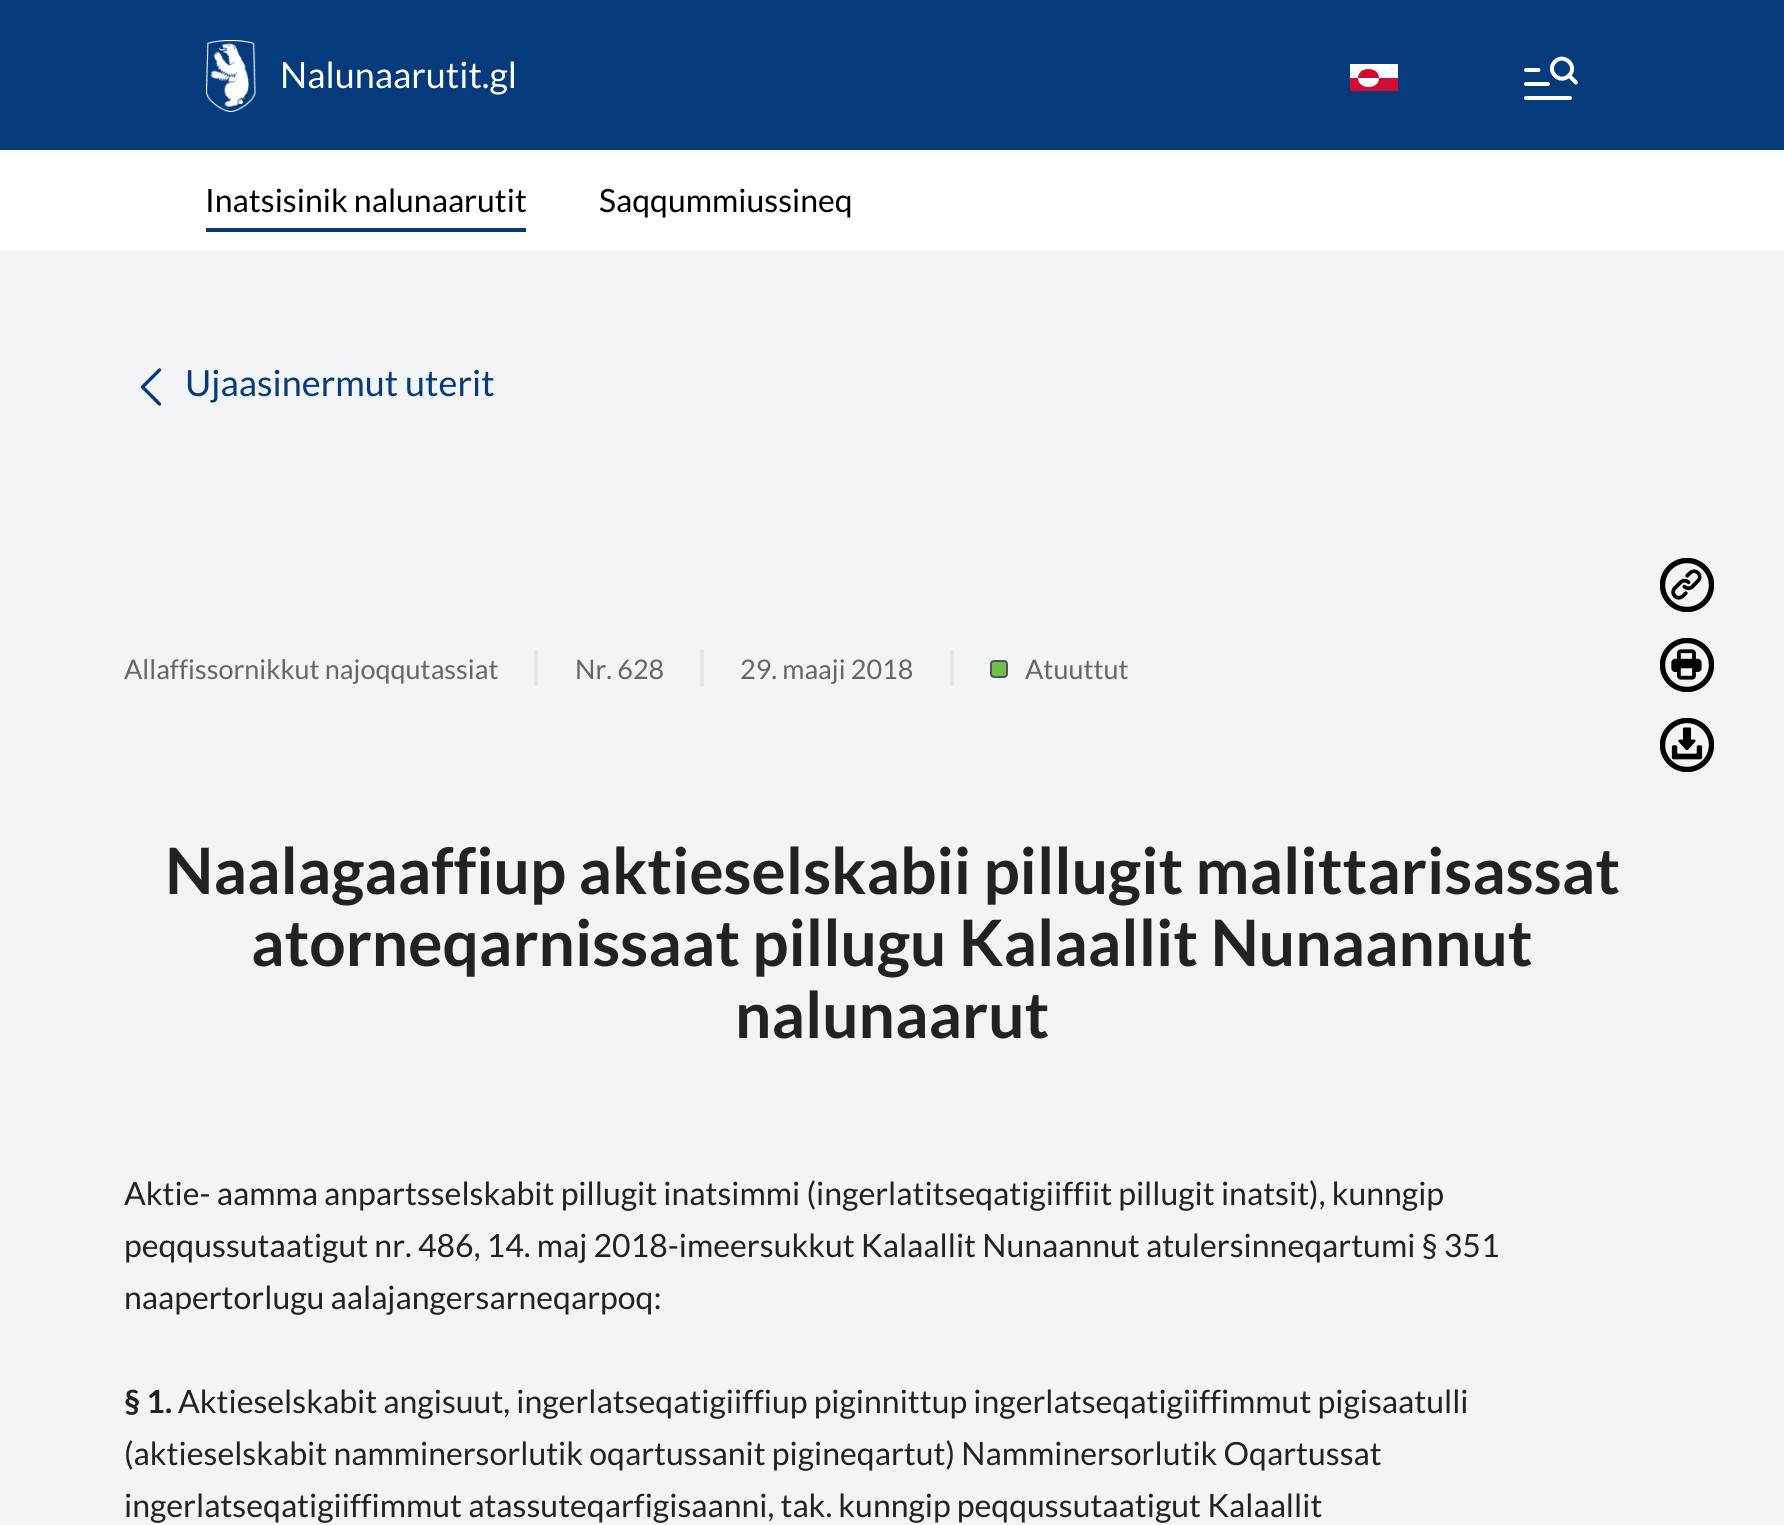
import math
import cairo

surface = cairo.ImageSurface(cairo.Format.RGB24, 1784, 1525)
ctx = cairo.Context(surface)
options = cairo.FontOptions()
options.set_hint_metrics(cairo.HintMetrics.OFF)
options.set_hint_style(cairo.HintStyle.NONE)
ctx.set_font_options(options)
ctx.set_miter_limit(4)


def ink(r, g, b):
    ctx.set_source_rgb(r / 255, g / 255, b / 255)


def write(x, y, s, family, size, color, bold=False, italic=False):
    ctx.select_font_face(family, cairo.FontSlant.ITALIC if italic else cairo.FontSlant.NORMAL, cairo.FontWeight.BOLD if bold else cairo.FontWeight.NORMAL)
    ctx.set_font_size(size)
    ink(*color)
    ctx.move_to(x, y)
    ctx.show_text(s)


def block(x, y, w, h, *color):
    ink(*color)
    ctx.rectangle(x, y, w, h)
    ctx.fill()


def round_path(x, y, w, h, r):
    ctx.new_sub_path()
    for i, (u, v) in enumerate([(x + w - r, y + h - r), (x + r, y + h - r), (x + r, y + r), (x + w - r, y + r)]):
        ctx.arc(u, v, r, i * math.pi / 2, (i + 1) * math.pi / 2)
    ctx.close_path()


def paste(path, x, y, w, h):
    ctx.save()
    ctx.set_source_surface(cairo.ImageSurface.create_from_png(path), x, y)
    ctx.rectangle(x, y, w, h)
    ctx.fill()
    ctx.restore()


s1 = dict(family="Lato", size=36, color=(255, 255, 255))
s2 = dict(family="Lato", size=32, color=(0, 0, 0))
s3 = dict(family="Lato", size=36, color=(5, 59, 123))
s4 = dict(family="Lato", size=27, color=(102, 102, 102))
s5 = dict(family="Lato", size=64, color=(34, 34, 34), bold=True)
s6 = dict(family="Lato", size=32, color=(34, 34, 34))
s7 = dict(family="Lato", size=32, color=(34, 34, 34), bold=True)

ink(5, 59, 123)
ctx.paint()
paste("pic1.png", 206, 40, 50, 72)
write(280, 88, "Nalunaarutit.gl", **s1)
block(1350, 64, 48, 23, 255, 255, 255)
ink(208, 12, 51)
ctx.new_path()
ctx.move_to(1350, 78)
ctx.line_to(1398, 78)
ctx.line_to(1398, 91)
ctx.line_to(1350, 91)
ctx.close_path()
ctx.move_to(1358, 78)
ctx.curve_to(1358, 90, 1379, 90, 1379, 78)
ctx.curve_to(1379, 66, 1358, 66, 1358, 78)
ctx.fill()
ctx.new_path()
ctx.move_to(1526, 70)
ctx.line_to(1538.5, 70)
ctx.move_to(1526, 84)
ctx.line_to(1548, 84)
ctx.move_to(1526, 98)
ctx.line_to(1570, 98)
ctx.move_to(1576, 82.5)
ctx.line_to(1569, 75.5)
ctx.move_to(1569, 75.5)
ctx.curve_to(1578.5, 66.5, 1564, 52.5, 1555, 61.5)
ctx.curve_to(1545.5, 71, 1560, 85, 1569, 75.5)
ctx.close_path()
ink(255, 255, 255)
ctx.set_line_width(4)
ctx.set_line_cap(cairo.LineCap.ROUND)
ctx.set_line_join(cairo.LineJoin.ROUND)
ctx.stroke()
block(0, 150, 1784, 100, 255, 255, 255)
write(205, 212, "Inatsisinik nalunaarutit", **s2)
block(206, 228, 320, 4, 5, 59, 123)
write(599, 212, "Saqqummiussineq", **s2)
block(0, 250, 1784, 1275, 243, 244, 246)
ctx.new_path()
ctx.move_to(159.5, 404)
ctx.line_to(142.5, 387)
ctx.line_to(159.5, 370)
ink(5, 59, 123)
ctx.set_line_width(3.4)
ctx.stroke()
write(185, 396, "Ujaasinermut uterit", **s3)
write(124, 679, "Allaffissornikkut najoqqutassiat", **s4)
block(534, 650, 4, 36, 229, 231, 235)
write(575, 679, "Nr. 628", **s4)
block(700, 650, 4, 36, 229, 231, 235)
write(740, 679, "29. maaji 2018", **s4)
block(950, 650, 4, 36, 229, 231, 235)
ink(115, 190, 70)
round_path(991, 661, 16, 16, 3)
ctx.fill_preserve()
ink(75, 85, 99)
ctx.set_line_width(2)
ctx.set_line_cap(cairo.LineCap.BUTT)
ctx.set_line_join(cairo.LineJoin.MITER)
ctx.stroke()
write(1025, 679, "Atuuttut", **s4)
paste("pic2.png", 1660, 558, 54, 54)
paste("pic3.png", 1660, 638, 54, 54)
paste("pic4.png", 1660, 718, 54, 54)
write(165, 894, "Naalagaaffiup aktieselskabii pillugit malittarisassat", **s5)
write(251, 966, "atorneqarnissaat pillugu Kalaallit Nunaannut", **s5)
write(735, 1038, "nalunaarut", **s5)
write(124, 1205, "Aktie- aamma anpartsselskabit pillugit inatsimmi (ingerlatitseqatigiiffiit pillugit inatsit), kunngip", **s6)
write(124, 1257, "peqqussutaatigut nr. 486, 14. maj 2018-imeersukkut Kalaallit Nunaannut atulersinneqartumi § 351", **s6)
write(124, 1309, "naapertorlugu aalajangersarneqarpoq:", **s6)
write(124, 1413, "§ 1.", **s7)
write(178, 1413, "Aktieselskabit angisuut, ingerlatseqatigiiffiup piginnittup ingerlatseqatigiiffimmut pigisaatulli", **s6)
write(124, 1465, "(aktieselskabit namminersorlutik oqartussanit pigineqartut) Namminersorlutik Oqartussat", **s6)
write(124, 1517, "ingerlatseqatigiiffimmut atassuteqarfigisaanni, tak. kunngip peqqussutaatigut Kalaallit", **s6)
surface.write_to_png("screenshot.png")
